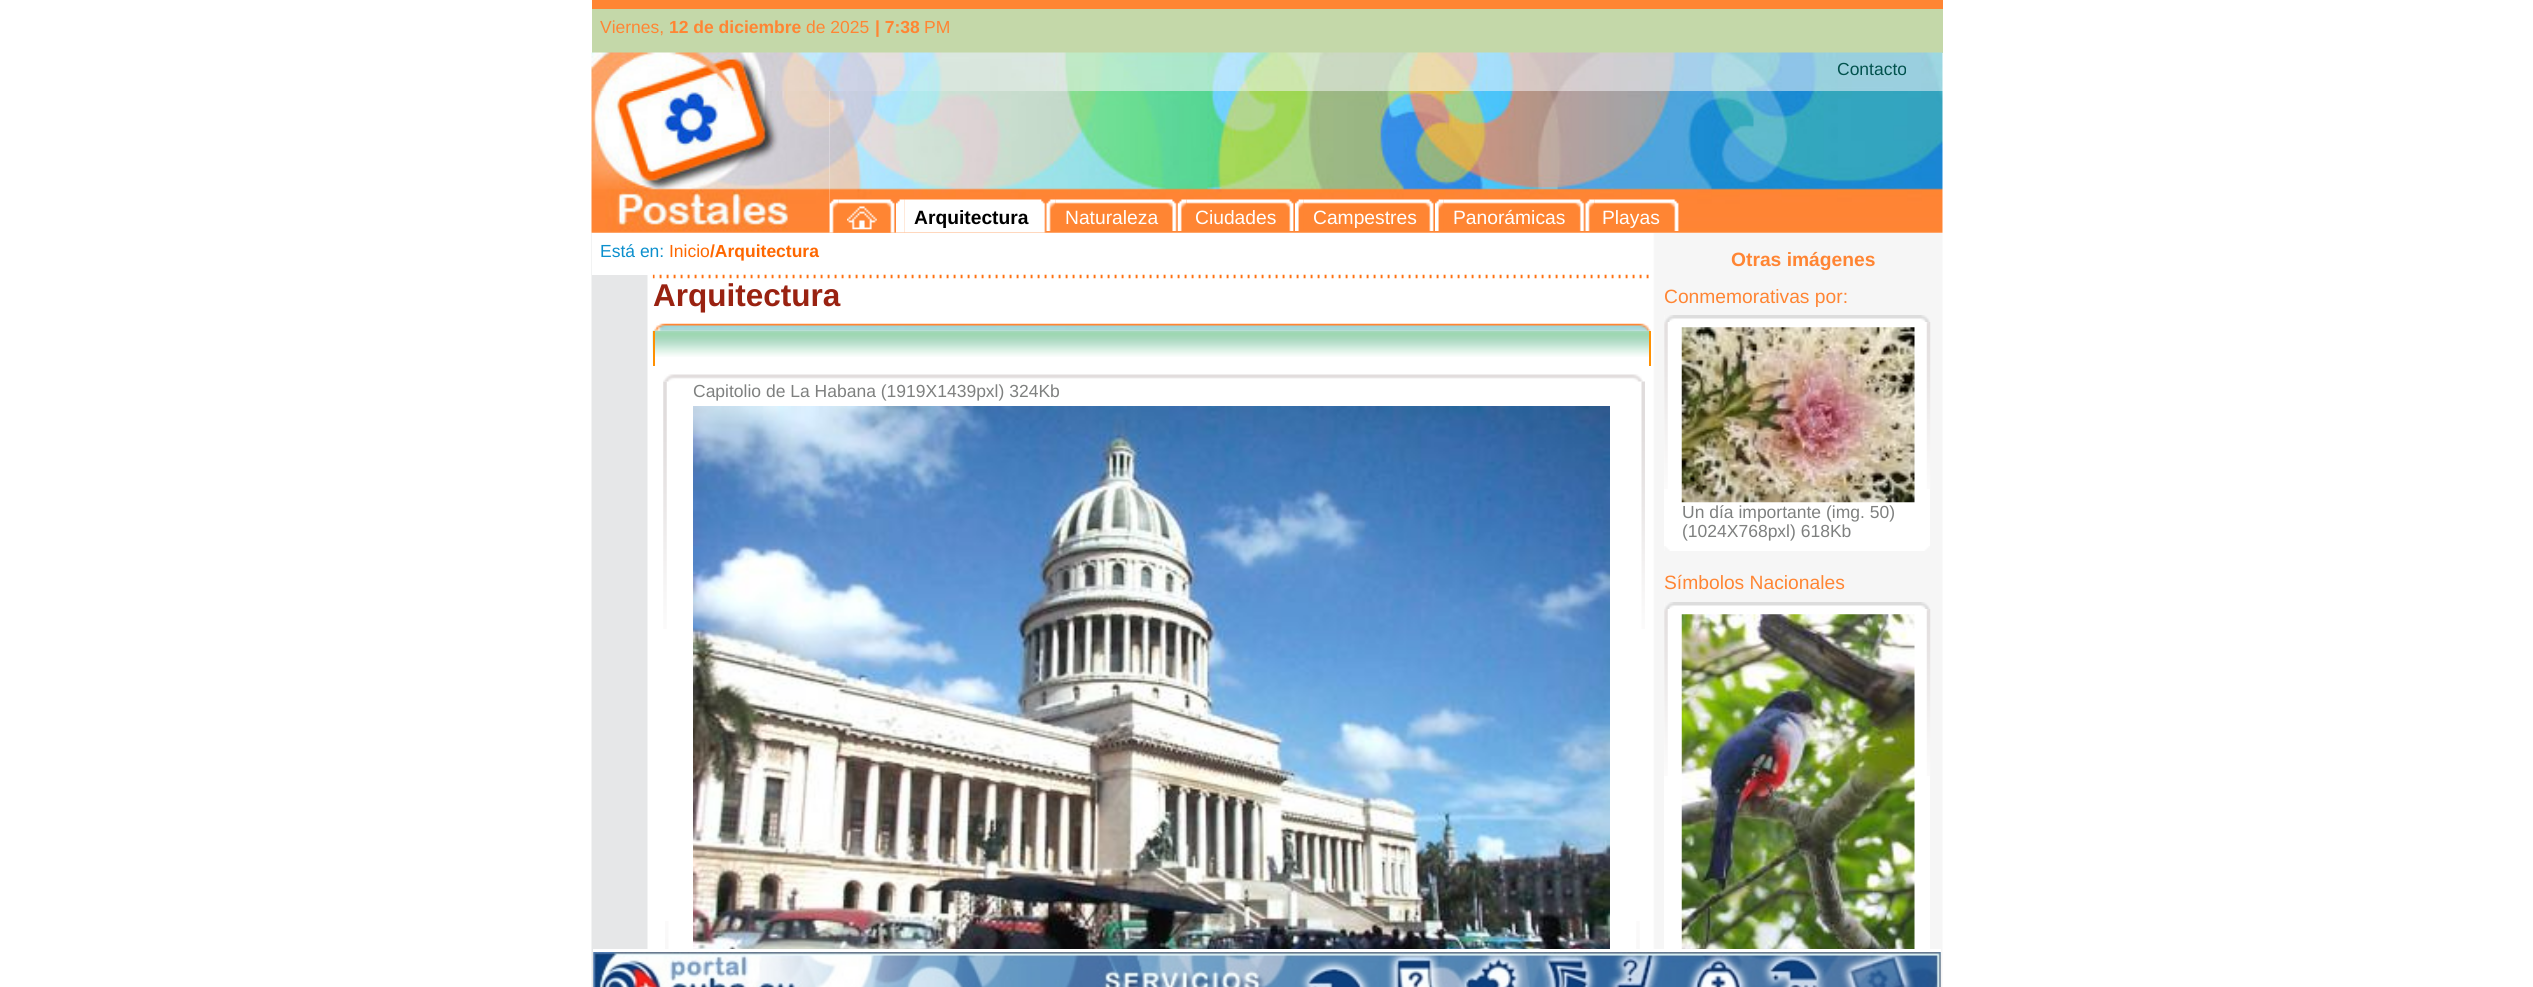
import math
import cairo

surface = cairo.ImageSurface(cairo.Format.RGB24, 2533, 987)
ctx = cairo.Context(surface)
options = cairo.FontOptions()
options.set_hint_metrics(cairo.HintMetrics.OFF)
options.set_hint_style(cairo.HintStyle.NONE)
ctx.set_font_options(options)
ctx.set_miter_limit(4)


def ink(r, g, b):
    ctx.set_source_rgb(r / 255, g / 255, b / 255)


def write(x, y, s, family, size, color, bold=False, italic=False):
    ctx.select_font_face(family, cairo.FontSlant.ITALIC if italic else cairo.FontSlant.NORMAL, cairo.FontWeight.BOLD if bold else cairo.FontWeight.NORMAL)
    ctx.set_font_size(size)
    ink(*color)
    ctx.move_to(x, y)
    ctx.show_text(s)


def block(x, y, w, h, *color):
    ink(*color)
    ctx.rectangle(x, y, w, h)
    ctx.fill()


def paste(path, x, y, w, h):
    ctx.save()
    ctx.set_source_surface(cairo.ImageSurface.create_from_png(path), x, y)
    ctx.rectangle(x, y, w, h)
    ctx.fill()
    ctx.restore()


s1 = dict(family="Liberation Sans", size=17.5, color=(255, 133, 51))
s2 = dict(family="Liberation Sans", size=17.5, color=(255, 133, 51), bold=True)
s3 = dict(family="Liberation Sans", size=17.5, color=(1, 82, 77))
s4 = dict(family="Liberation Sans", size=19.25, color=(0, 0, 0), bold=True)
s5 = dict(family="Liberation Sans", size=19.25, color=(255, 255, 255))
s6 = dict(family="Liberation Sans", size=17.5, color=(11, 143, 205))
s7 = dict(family="Liberation Sans", size=17.5, color=(254, 103, 0))
s8 = dict(family="Liberation Sans", size=17.5, color=(254, 103, 0), bold=True)
s9 = dict(family="Liberation Sans", size=31.5, color=(153, 34, 17), bold=True)
s10 = dict(family="Liberation Sans", size=17.5, color=(126, 128, 127))
s11 = dict(family="Liberation Sans", size=19.25, color=(255, 133, 51), bold=True)
s12 = dict(family="Liberation Sans", size=19.25, color=(255, 133, 51))

ink(255, 255, 255)
ctx.paint()
block(592, 0, 1351, 9, 255, 133, 51)
block(592, 9, 1351, 44, 196, 216, 169)
write(600, 33, "Viernes,", **s1)
write(669, 33, "12 de diciembre", **s2)
write(806, 33, "de 2025", **s1)
write(875, 33, "| 7:38", **s2)
write(924, 33, "PM", **s1)
paste("pic1.png", 591, 52, 1352, 39)
write(1837, 75, "Contacto", **s3)
paste("pic19.png", 591, 232, 1352, 755)
paste("pic2.png", 591, 91, 239, 142)
paste("pic3.png", 829, 91, 1114, 142)
paste("pic4.png", 829, 199, 10, 34)
paste("pic5.png", 838, 199, 57, 34)
paste("pic6.png", 847, 206, 30, 24)
paste("pic7.png", 896, 199, 9, 34)
paste("pic8.png", 904, 199, 142, 34)
write(914, 224, "Arquitectura", **s4)
paste("pic9.png", 1046, 199, 10, 32)
paste("pic10.png", 1055, 199, 122, 32)
write(1065, 224, "Naturaleza", **s5)
paste("pic11.png", 1177, 199, 10, 32)
paste("pic12.png", 1186, 199, 108, 32)
write(1195, 224, "Ciudades", **s5)
paste("pic13.png", 1295, 199, 9, 32)
paste("pic14.png", 1303, 199, 131, 32)
write(1313, 224, "Campestres", **s5)
paste("pic15.png", 1435, 199, 9, 32)
paste("pic16.png", 1443, 199, 142, 32)
write(1453, 224, "Panorámicas", **s5)
paste("pic17.png", 1585, 199, 10, 32)
paste("pic18.png", 1594, 199, 85, 32)
write(1602, 224, "Playas", **s5)
block(592, 233, 56, 42, 255, 255, 255)
write(600, 257, "Está en:", **s6)
write(669, 257, "Inicio", **s7)
write(710, 257, "/Arquitectura", **s8)
paste("pic20.png", 652, 274, 997, 5)
write(653, 306, "Arquitectura", **s9)
paste("pic21.png", 654, 323, 997, 8)
paste("pic22.png", 652, 330, 999, 27)
block(1649, 331, 2, 35, 255, 144, 1)
block(653, 331, 2, 35, 255, 144, 1)
paste("pic23.png", 663, 374, 980, 8)
paste("pic24.png", 663, 381, 4, 248)
write(693, 397, "Capitolio de La Habana (1919X1439pxl) 324Kb", **s10)
paste("pic25.png", 693, 406, 917, 543)
paste("pic26.png", 1641, 381, 4, 248)
paste("pic27.png", 665, 921, 4, 28)
paste("pic28.png", 1636, 921, 4, 28)
write(1731, 266, "Otras imágenes", **s11)
write(1664, 303, "Conmemorativas por:", **s12)
block(1664, 315, 266, 236, 255, 255, 255)
paste("pic29.png", 1664, 315, 266, 7)
paste("pic30.png", 1664, 322, 4, 167)
paste("pic31.png", 1926, 322, 5, 167)
paste("pic32.png", 1681, 327, 234, 176)
write(1682, 518, "Un día importante (img. 50)", **s10)
write(1682, 537, "(1024X768pxl) 618Kb", **s10)
paste("pic33.png", 1664, 546, 266, 5)
write(1664, 589, "Símbolos Nacionales", **s12)
block(1664, 602, 266, 347, 255, 255, 255)
paste("pic29.png", 1664, 602, 266, 7)
paste("pic30.png", 1664, 609, 4, 167)
paste("pic34.png", 1681, 614, 234, 335)
paste("pic31.png", 1926, 609, 5, 167)
block(593, 949, 1348, 4, 255, 255, 255)
paste("pic35.png", 593, 952, 1348, 35)
surface.write_to_png("screenshot.png")
